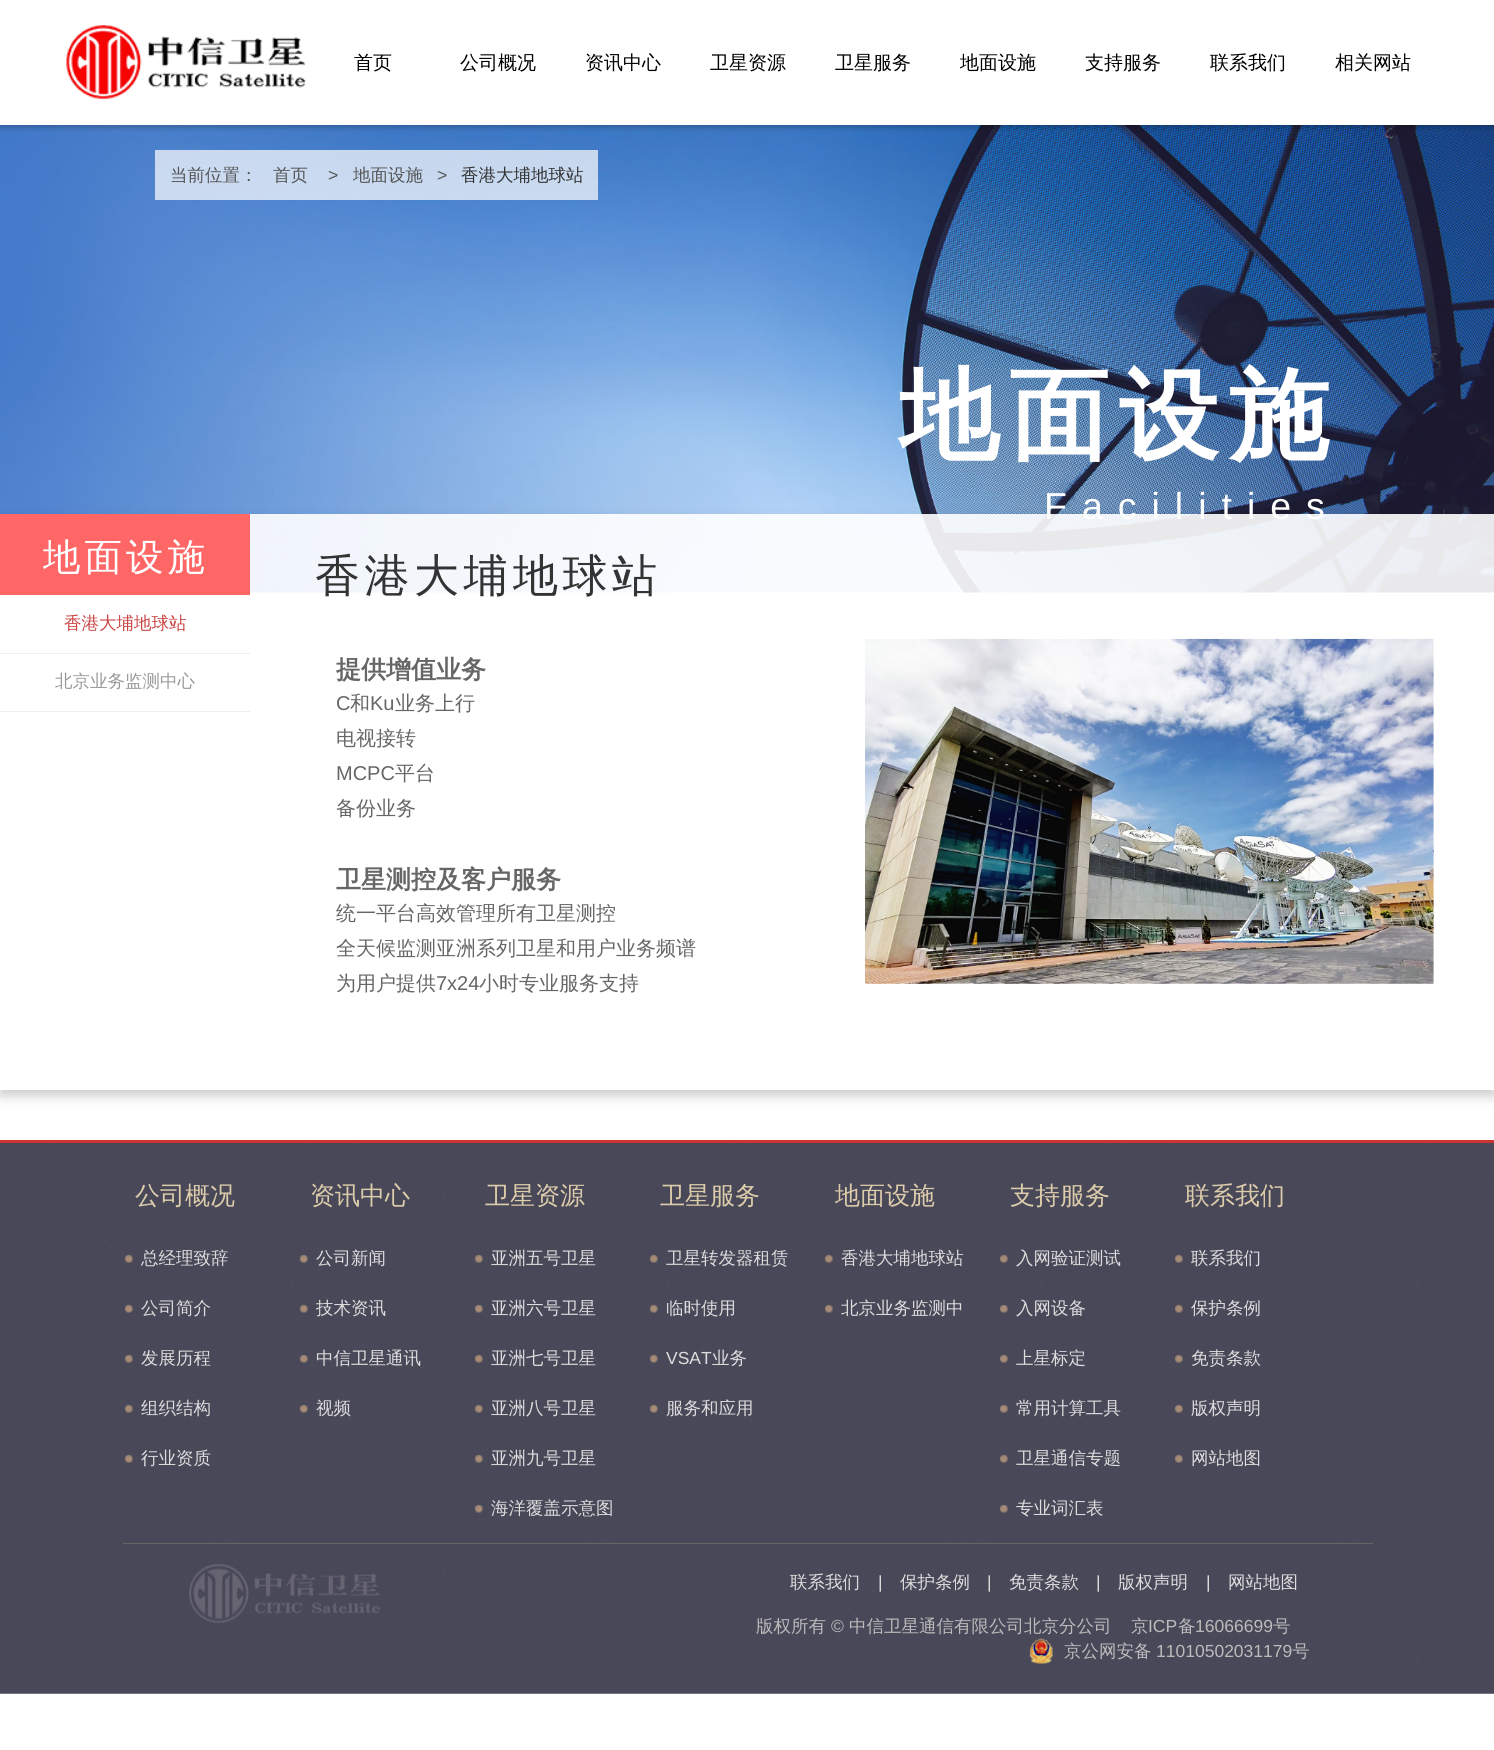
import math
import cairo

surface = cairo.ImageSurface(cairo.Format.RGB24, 1494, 1750)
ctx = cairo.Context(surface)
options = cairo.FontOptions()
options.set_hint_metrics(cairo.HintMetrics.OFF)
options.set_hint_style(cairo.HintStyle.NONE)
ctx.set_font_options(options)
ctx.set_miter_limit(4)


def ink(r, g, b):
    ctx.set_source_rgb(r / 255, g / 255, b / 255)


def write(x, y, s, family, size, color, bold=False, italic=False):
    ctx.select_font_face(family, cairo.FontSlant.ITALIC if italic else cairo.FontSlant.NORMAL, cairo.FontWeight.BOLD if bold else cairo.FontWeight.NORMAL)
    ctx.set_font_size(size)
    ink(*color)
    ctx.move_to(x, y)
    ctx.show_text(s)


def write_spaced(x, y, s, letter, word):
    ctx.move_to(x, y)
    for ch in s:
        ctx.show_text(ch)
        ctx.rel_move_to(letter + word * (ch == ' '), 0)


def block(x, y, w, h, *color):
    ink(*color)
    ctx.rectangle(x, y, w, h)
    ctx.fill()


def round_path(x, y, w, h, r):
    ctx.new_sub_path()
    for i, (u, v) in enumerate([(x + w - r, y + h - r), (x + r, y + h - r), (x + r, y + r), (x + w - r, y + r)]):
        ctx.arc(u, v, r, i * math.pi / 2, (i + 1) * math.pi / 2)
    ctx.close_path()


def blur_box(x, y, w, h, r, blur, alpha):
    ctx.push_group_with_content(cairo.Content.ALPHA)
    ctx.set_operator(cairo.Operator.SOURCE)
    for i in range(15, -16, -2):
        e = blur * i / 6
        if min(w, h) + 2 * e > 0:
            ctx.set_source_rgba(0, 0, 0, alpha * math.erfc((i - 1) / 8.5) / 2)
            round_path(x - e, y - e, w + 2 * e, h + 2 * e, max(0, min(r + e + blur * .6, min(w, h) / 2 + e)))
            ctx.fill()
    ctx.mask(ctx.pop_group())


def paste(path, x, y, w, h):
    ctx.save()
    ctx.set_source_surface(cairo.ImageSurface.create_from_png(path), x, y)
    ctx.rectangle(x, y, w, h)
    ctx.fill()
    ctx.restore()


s1 = dict(family="WenQuanYi Zen Hei Medium", size=19, color=(0, 0, 0))
s2 = dict(family="WenQuanYi Zen Hei Medium", size=17.5, color=(85, 85, 85))
s3 = dict(family="Liberation Sans", size=17.5, color=(85, 85, 85))
s4 = dict(family="WenQuanYi Zen Hei Medium", size=17.5, color=(51, 51, 51))
s5 = dict(family="WenQuanYi Zen Hei Medium", size=17.5, color=(204, 68, 68))
s6 = dict(family="WenQuanYi Zen Hei Medium", size=17.5, color=(153, 153, 153))
s7 = dict(family="WenQuanYi Zen Hei", size=25, color=(102, 102, 102), bold=True)
s8 = dict(family="Liberation Sans", size=20, color=(102, 102, 102))
s9 = dict(family="WenQuanYi Zen Hei Medium", size=20, color=(102, 102, 102))
s10 = dict(family="WenQuanYi Zen Hei Medium", size=25, color=(221, 204, 170))
s11 = dict(family="WenQuanYi Zen Hei Medium", size=17.5, color=(221, 221, 221))
s12 = dict(family="Liberation Sans", size=17.5, color=(221, 221, 221))
s13 = dict(family="WenQuanYi Zen Hei Medium", size=17.5, color=(187, 187, 187))
s14 = dict(family="Liberation Sans", size=17.5, color=(187, 187, 187))

ink(255, 255, 255)
ctx.paint()
paste("pic2.png", 0, 125, 1494, 468)
ctx.save()
ctx.rectangle(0, 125, 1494, 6)
ctx.clip()
ink(0, 0, 0)
blur_box(0, 3, 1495, 125, 0, 2.5, 0.2)
ctx.restore()
paste("pic1.png", 66, 25, 240, 74)
write(354, 69, "首页", **s1)
write(460, 69, "公司概况", **s1)
write(585, 69, "资讯中心", **s1)
write(710, 69, "卫星资源", **s1)
write(835, 69, "卫星服务", **s1)
write(960, 69, "地面设施", **s1)
write(1085, 69, "支持服务", **s1)
write(1210, 69, "联系我们", **s1)
write(1335, 69, "相关网站", **s1)
ctx.set_source_rgba(1, 1, 1, 0.7)
ctx.rectangle(155, 150, 443, 50)
ctx.fill()
write(170, 181, "当前位置：", **s2)
write(273, 181, "首页", **s2)
write(328, 181, ">", **s3)
write(353, 181, "地面设施", **s2)
write(437, 181, ">", **s3)
write(461, 181, "香港大埔地球站", **s4)
ctx.select_font_face("WenQuanYi Zen Hei", cairo.FontSlant.NORMAL, cairo.FontWeight.BOLD)
ctx.set_font_size(100)
ink(255, 255, 255)
write_spaced(899, 450, "地面设施", 10, 0)
ctx.select_font_face("Liberation Sans")
ctx.set_font_size(37.5)
write_spaced(1044, 519, "Facilities", 15, 0)
ctx.save()
ctx.set_fill_rule(cairo.FillRule.EVEN_ODD)
ctx.new_path()
ctx.move_to(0, 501)
ctx.line_to(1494, 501)
ctx.line_to(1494, 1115)
ctx.line_to(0, 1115)
ctx.close_path()
ctx.move_to(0, 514)
ctx.line_to(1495, 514)
ctx.line_to(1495, 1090)
ctx.line_to(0, 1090)
ctx.close_path()
ctx.clip()
ink(0, 0, 0)
blur_box(0, 520, 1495, 576, 0, 6, 0.2)
ctx.restore()
ctx.set_source_rgba(1, 1, 1, 0.9)
ctx.rectangle(0, 514, 1494, 79)
ctx.fill()
block(0, 514, 250, 81, 255, 102, 102)
ctx.select_font_face("WenQuanYi Zen Hei Medium")
ink(255, 255, 255)
write_spaced(43, 570, "地面设施", 4, 0)
block(0, 653, 250, 1, 238, 238, 238)
write(64, 629, "香港大埔地球站", **s5)
block(0, 711, 250, 1, 238, 238, 238)
write(55, 687, "北京业务监测中心", **s6)
ctx.set_font_size(45)
ink(51, 51, 51)
write_spaced(315, 591, "香港大埔地球站", 4.5, 0)
write(336, 678, "提供增值业务", **s7)
write(336, 710, "C", **s8)
write(350, 710, "和", **s9)
write(370, 710, "Ku", **s8)
write(395, 710, "业务上行", **s9)
write(336, 745, "电视接转", **s9)
write(336, 780, "MCPC", **s8)
write(395, 780, "平台", **s9)
write(336, 815, "备份业务", **s9)
write(336, 888, "卫星测控及客户服务", **s7)
write(336, 920, "统一平台高效管理所有卫星测控", **s9)
write(336, 955, "全天候监测亚洲系列卫星和用户业务频谱", **s9)
write(336, 990, "为用户提供", **s9)
write(436, 990, "7x24", **s8)
write(479, 990, "小时专业服务支持", **s9)
paste("pic3.png", 865, 638, 569, 346)
paste("pic4.png", 0, 1143, 1494, 551)
block(0, 1140, 1494, 3, 204, 51, 51)
write(135, 1204, "公司概况", **s10)
paste("pic5.png", 124, 1254, 9, 9)
write(141, 1264, "总经理致辞", **s11)
paste("pic6.png", 124, 1304, 9, 9)
write(141, 1314, "公司简介", **s11)
paste("pic7.png", 124, 1354, 9, 9)
write(141, 1364, "发展历程", **s11)
paste("pic8.png", 124, 1404, 9, 9)
write(141, 1414, "组织结构", **s11)
paste("pic9.png", 124, 1454, 9, 9)
write(141, 1464, "行业资质", **s11)
write(310, 1204, "资讯中心", **s10)
paste("pic10.png", 299, 1254, 9, 9)
write(316, 1264, "公司新闻", **s11)
paste("pic11.png", 299, 1304, 9, 9)
write(316, 1314, "技术资讯", **s11)
paste("pic12.png", 299, 1354, 9, 9)
write(316, 1364, "中信卫星通讯", **s11)
paste("pic13.png", 299, 1404, 9, 9)
write(316, 1414, "视频", **s11)
write(485, 1204, "卫星资源", **s10)
paste("pic14.png", 474, 1254, 9, 9)
write(491, 1264, "亚洲五号卫星", **s11)
paste("pic15.png", 474, 1304, 9, 9)
write(491, 1314, "亚洲六号卫星", **s11)
paste("pic16.png", 474, 1354, 9, 9)
write(491, 1364, "亚洲七号卫星", **s11)
paste("pic17.png", 474, 1404, 9, 9)
write(491, 1414, "亚洲八号卫星", **s11)
paste("pic18.png", 474, 1454, 9, 9)
write(491, 1464, "亚洲九号卫星", **s11)
paste("pic19.png", 474, 1504, 9, 9)
write(491, 1514, "海洋覆盖示意图", **s11)
write(660, 1204, "卫星服务", **s10)
paste("pic20.png", 649, 1254, 9, 9)
write(666, 1264, "卫星转发器租赁", **s11)
paste("pic21.png", 649, 1304, 9, 9)
write(666, 1314, "临时使用", **s11)
paste("pic22.png", 649, 1354, 9, 9)
write(666, 1364, "VSAT", **s12)
write(712, 1364, "业务", **s11)
paste("pic23.png", 649, 1404, 9, 9)
write(666, 1414, "服务和应用", **s11)
write(835, 1204, "地面设施", **s10)
paste("pic24.png", 824, 1254, 9, 9)
write(841, 1264, "香港大埔地球站", **s11)
paste("pic25.png", 824, 1304, 9, 9)
write(841, 1314, "北京业务监测中", **s11)
write(1010, 1204, "支持服务", **s10)
paste("pic26.png", 999, 1254, 9, 9)
write(1016, 1264, "入网验证测试", **s11)
paste("pic27.png", 999, 1304, 9, 9)
write(1016, 1314, "入网设备", **s11)
paste("pic28.png", 999, 1354, 9, 9)
write(1016, 1364, "上星标定", **s11)
paste("pic29.png", 999, 1404, 9, 9)
write(1016, 1414, "常用计算工具", **s11)
paste("pic30.png", 999, 1454, 9, 9)
write(1016, 1464, "卫星通信专题", **s11)
paste("pic31.png", 999, 1504, 9, 9)
write(1016, 1514, "专业词汇表", **s11)
write(1185, 1204, "联系我们", **s10)
paste("pic32.png", 1174, 1254, 9, 9)
write(1191, 1264, "联系我们", **s11)
paste("pic33.png", 1174, 1304, 9, 9)
write(1191, 1314, "保护条例", **s11)
paste("pic34.png", 1174, 1354, 9, 9)
write(1191, 1364, "免责条款", **s11)
paste("pic35.png", 1174, 1404, 9, 9)
write(1191, 1414, "版权声明", **s11)
paste("pic36.png", 1174, 1454, 9, 9)
write(1191, 1464, "网站地图", **s11)
block(123, 1543, 1250, 1, 102, 102, 102)
paste("pic37.png", 189, 1564, 191, 59)
write(790, 1588, "联系我们", **s11)
write(878, 1588, "|", **s12)
write(900, 1588, "保护条例", **s11)
write(987, 1588, "|", **s12)
write(1009, 1588, "免责条款", **s11)
write(1096, 1588, "|", **s12)
write(1118, 1588, "版权声明", **s11)
write(1206, 1588, "|", **s12)
write(1228, 1588, "网站地图", **s11)
write(756, 1632, "版权所有", **s13)
write(831, 1632, "©", **s14)
write(849, 1632, "中信卫星通信有限公司北京分公司", **s13)
write(1131, 1632, "京", **s13)
write(1148, 1632, "ICP", **s14)
write(1178, 1632, "备", **s13)
write(1195, 1632, "16066699", **s14)
write(1273, 1632, "号", **s13)
paste("pic38.png", 1029, 1638, 24, 26)
write(1064, 1657, "京公网安备", **s13)
write(1156, 1657, "11010502031179", **s14)
write(1292, 1657, "号", **s13)
surface.write_to_png("screenshot.png")
